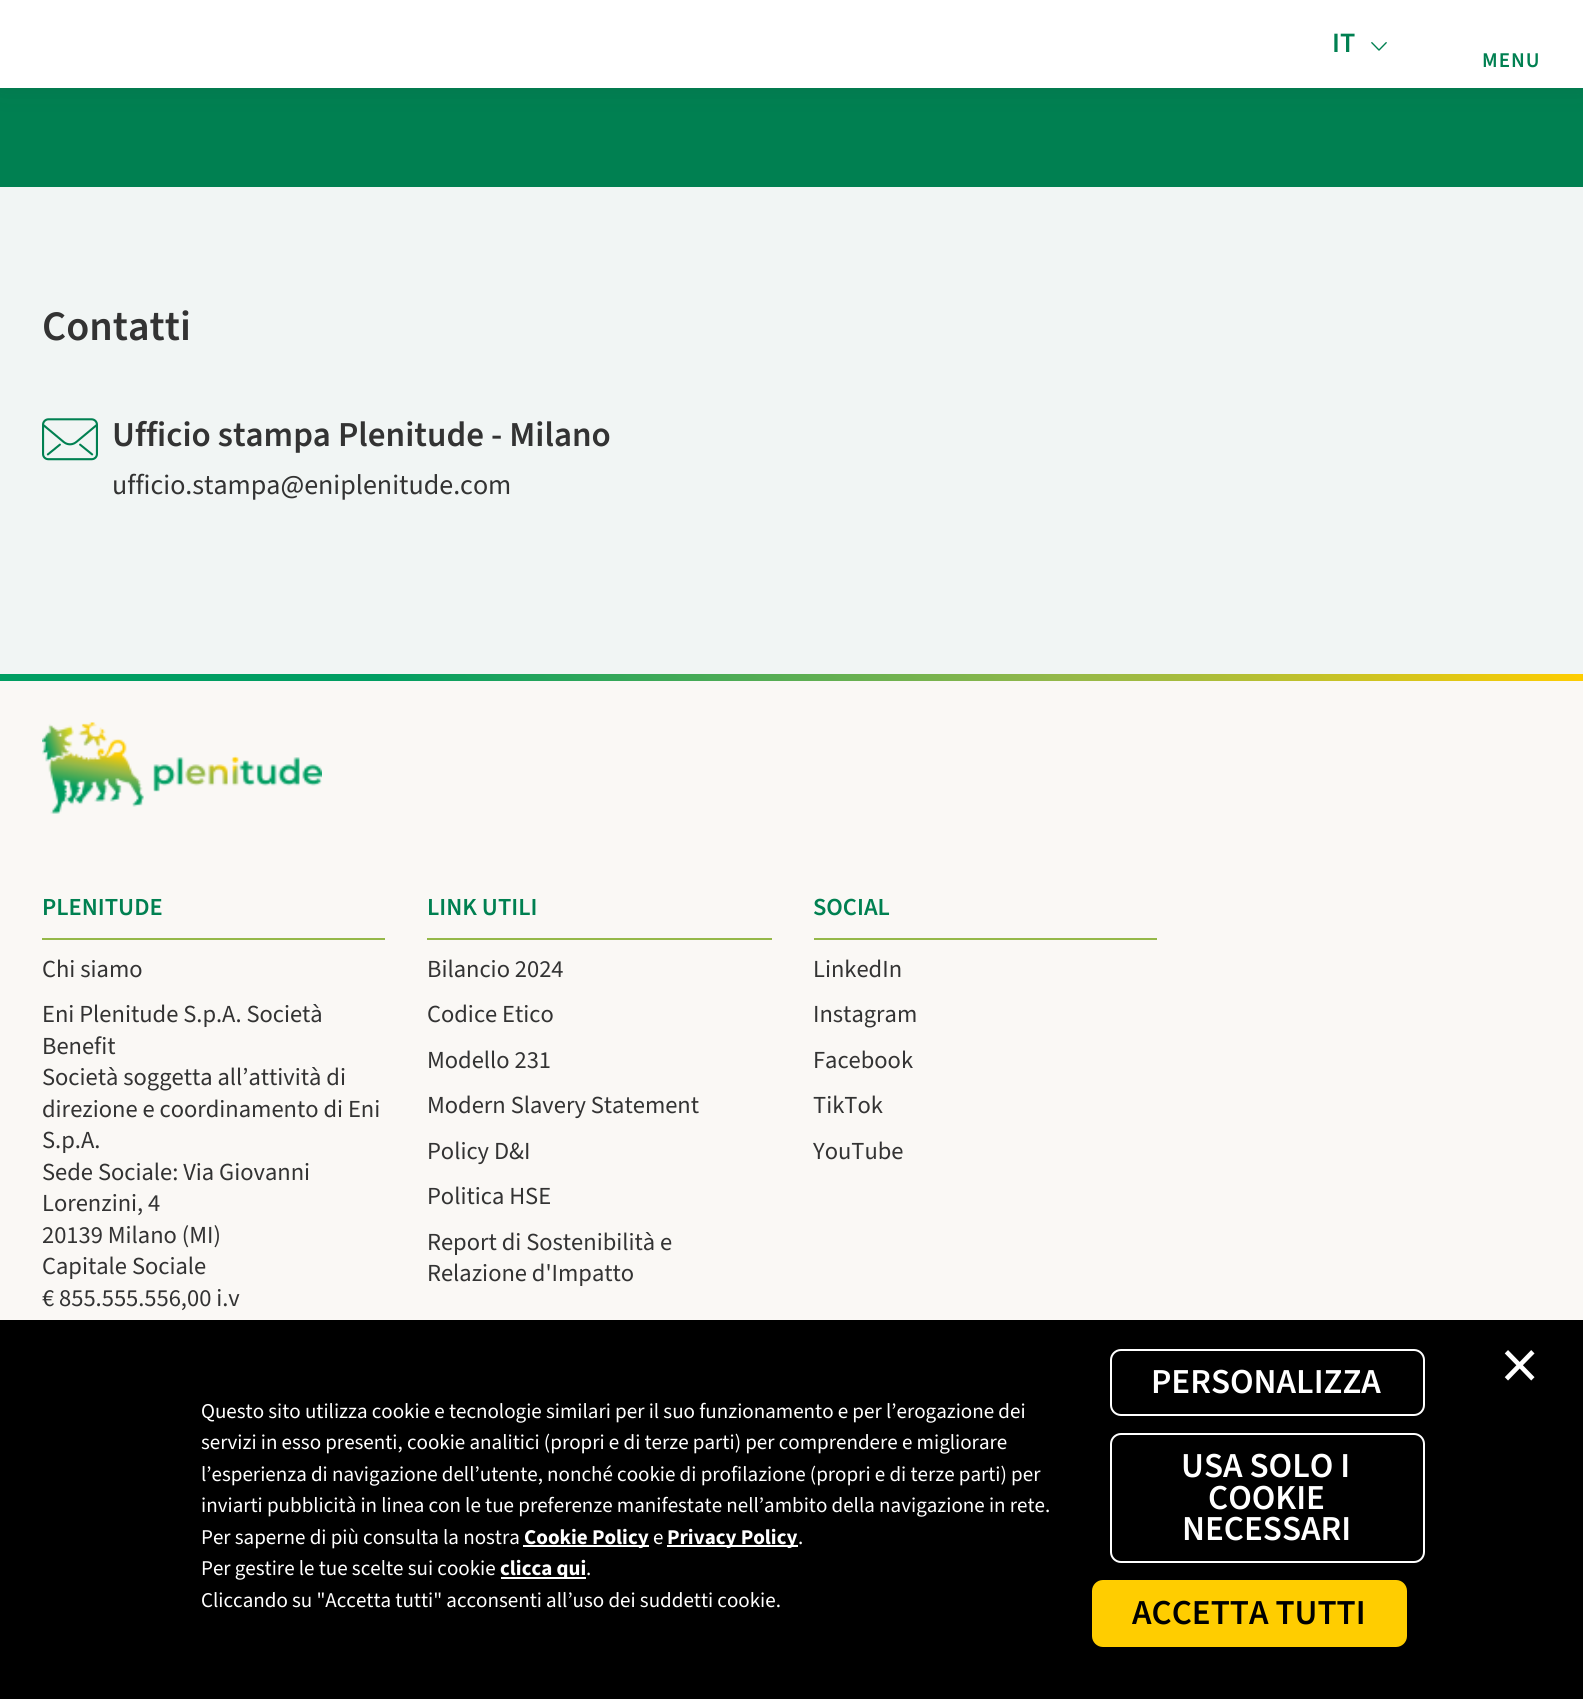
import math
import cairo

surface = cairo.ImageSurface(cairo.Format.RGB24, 1583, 1699)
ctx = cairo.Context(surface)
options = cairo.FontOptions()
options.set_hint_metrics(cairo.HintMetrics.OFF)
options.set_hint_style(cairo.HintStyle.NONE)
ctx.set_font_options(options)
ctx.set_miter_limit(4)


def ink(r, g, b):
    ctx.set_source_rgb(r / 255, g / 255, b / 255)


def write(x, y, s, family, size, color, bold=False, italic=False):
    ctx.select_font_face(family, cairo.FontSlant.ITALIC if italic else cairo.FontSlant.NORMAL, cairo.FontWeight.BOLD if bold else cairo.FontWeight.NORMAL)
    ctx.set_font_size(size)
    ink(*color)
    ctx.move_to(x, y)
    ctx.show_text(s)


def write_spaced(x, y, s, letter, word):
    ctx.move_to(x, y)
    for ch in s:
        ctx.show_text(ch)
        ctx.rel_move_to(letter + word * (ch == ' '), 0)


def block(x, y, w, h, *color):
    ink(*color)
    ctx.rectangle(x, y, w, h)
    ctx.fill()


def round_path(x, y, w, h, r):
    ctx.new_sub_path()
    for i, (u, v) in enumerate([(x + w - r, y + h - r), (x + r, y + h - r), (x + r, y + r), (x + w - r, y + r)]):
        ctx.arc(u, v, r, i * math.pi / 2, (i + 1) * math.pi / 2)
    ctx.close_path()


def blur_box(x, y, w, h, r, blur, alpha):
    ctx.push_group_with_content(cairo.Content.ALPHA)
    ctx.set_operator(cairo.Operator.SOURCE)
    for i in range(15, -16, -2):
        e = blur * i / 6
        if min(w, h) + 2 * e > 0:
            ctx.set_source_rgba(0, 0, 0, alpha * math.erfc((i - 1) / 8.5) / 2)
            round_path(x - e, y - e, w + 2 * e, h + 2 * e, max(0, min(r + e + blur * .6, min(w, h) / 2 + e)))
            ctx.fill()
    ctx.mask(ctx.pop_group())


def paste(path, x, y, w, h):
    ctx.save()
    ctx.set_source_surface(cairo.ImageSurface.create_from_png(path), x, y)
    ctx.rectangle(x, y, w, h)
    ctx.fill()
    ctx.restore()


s1 = dict(family="Source Sans 3 SemiBold", size=28, color=(0, 128, 81))
s2 = dict(family="Source Sans 3 SemiBold", size=42, color=(51, 51, 51))
s3 = dict(family="Source Sans 3 SemiBold", size=35, color=(51, 51, 51))
s4 = dict(family="Source Sans 3", size=28, color=(51, 51, 51))
s5 = dict(family="Source Sans 3 SemiBold", size=24.5, color=(0, 128, 81))
s6 = dict(family="Source Sans 3", size=24.5, color=(51, 51, 51))
s7 = dict(family="Source Sans 3", size=75, color=(255, 255, 255))
s8 = dict(family="Source Sans 3", size=21, color=(255, 255, 255))
s9 = dict(family="Source Sans 3", size=21, color=(255, 255, 255), bold=True)
s10 = dict(family="Source Sans 3 SemiBold", size=35, color=(255, 255, 255))
s11 = dict(family="Source Sans 3 SemiBold", size=35, color=(0, 0, 0))

ink(250, 248, 245)
ctx.paint()
block(0, 88, 1583, 99, 0, 128, 81)
ink(51, 51, 51)
blur_box(0, 0, 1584, 88, 0, 13, 0.12)
block(0, 0, 1583, 88, 255, 255, 255)
write(1332, 52, "IT", **s1)
paste("pic1.png", 1371, 42, 16, 9)
ctx.set_font_size(21)
write_spaced(1482, 67, "MENU", 1, 0)
block(0, 187, 1583, 487, 241, 245, 244)
write(42, 340, "Contatti", **s2)
paste("pic2.png", 42, 418, 56, 43)
write(112, 446, "Ufficio stampa Plenitude - Milano", **s3)
write(112, 494, "ufficio.stampa@eniplenitude.com", **s4)
gradient = cairo.LinearGradient(394, 1075, 1190, 280)
gradient.add_color_stop_rgba(0, 0, 0.62, 0.384, 1)
gradient.add_color_stop_rgba(0.24, 0, 0.62, 0.384, 1)
gradient.add_color_stop_rgba(0.67, 0.584, 0.722, 0.286, 1)
gradient.add_color_stop_rgba(0.75, 0.655, 0.737, 0.235, 1)
gradient.add_color_stop_rgba(0.89, 0.843, 0.773, 0.106, 1)
gradient.add_color_stop_rgba(1, 1, 0.804, 0, 1)
ctx.set_source(gradient)
ctx.rectangle(0, 674, 1583, 7)
ctx.fill()
paste("pic3.png", 42, 722, 280, 92)
write(42, 915, "PLENITUDE", **s5)
block(42, 938, 343, 2, 149, 184, 73)
write(42, 977, "Chi siamo", **s6)
write(42, 1022, "Eni Plenitude S.p.A. Società", **s6)
write(42, 1054, "Benefit", **s6)
write(42, 1085, "Società soggetta all’attività di", **s6)
write(42, 1117, "direzione e coordinamento di Eni", **s6)
write(42, 1148, "S.p.A.", **s6)
write(42, 1180, "Sede Sociale: Via Giovanni", **s6)
write(42, 1211, "Lorenzini, 4", **s6)
write(42, 1243, "20139 Milano (MI)", **s6)
write(42, 1274, "Capitale Sociale", **s6)
write(42, 1306, "€ 855.555.556,00 i.v", **s6)
write(427, 915, "LINK UTILI", **s5)
block(427, 938, 345, 2, 149, 184, 73)
write(427, 977, "Bilancio 2024", **s6)
write(427, 1022, "Codice Etico", **s6)
write(427, 1068, "Modello 231", **s6)
write(427, 1113, "Modern Slavery Statement", **s6)
write(427, 1159, "Policy D&I", **s6)
write(427, 1204, "Politica HSE", **s6)
write(427, 1250, "Report di Sostenibilità e", **s6)
write(427, 1281, "Relazione d'Impatto", **s6)
write(813, 915, "SOCIAL", **s5)
block(814, 938, 343, 2, 149, 184, 73)
write(813, 977, "LinkedIn", **s6)
write(813, 1022, "Instagram", **s6)
write(813, 1068, "Facebook", **s6)
write(813, 1113, "TikTok", **s6)
write(813, 1159, "YouTube", **s6)
block(0, 1320, 1583, 379, 0, 0, 0)
write(1501, 1390, "×", **s7)
write(201, 1418, "Questo sito utilizza cookie e tecnologie similari per il suo funzionamento e per l’erogazione dei", **s8)
write(201, 1449, "servizi in esso presenti, cookie analitici (propri e di terze parti) per comprendere e migliorare", **s8)
write(201, 1481, "l’esperienza di navigazione dell’utente, nonché cookie di profilazione (propri e di terze parti) per", **s8)
write(201, 1512, "inviarti pubblicità in linea con le tue preferenze manifestate nell’ambito della navigazione in rete.", **s8)
write(201, 1544, "Per saperne di più consulta la nostra", **s8)
block(523, 1545, 126, 2, 255, 255, 255)
write(524, 1544, "Cookie Policy", **s9)
write(653, 1544, "e", **s8)
block(667, 1545, 131, 2, 255, 255, 255)
write(667, 1544, "Privacy Policy", **s9)
write(798, 1544, ".", **s8)
write(201, 1575, "Per gestire le tue scelte sui cookie", **s8)
block(501, 1577, 85, 2, 255, 255, 255)
write(500, 1575, "clicca qui", **s9)
write(586, 1575, ".", **s8)
write(201, 1607, "Cliccando su \"Accetta tutti\" acconsenti all’uso dei suddetti cookie.", **s8)
round_path(1111, 1350, 313, 65, 10)
ctx.stroke()
write(1151, 1393, "PERSONALIZZA", **s10)
round_path(1111, 1434, 313, 128, 10)
ctx.stroke()
write(1181, 1477, "USA SOLO I", **s10)
write(1208, 1509, "COOKIE", **s10)
write(1182, 1540, "NECESSARI", **s10)
ink(255, 205, 0)
round_path(1093, 1581, 313, 65, 10)
ctx.fill_preserve()
ctx.stroke()
write(1132, 1624, "ACCETTA TUTTI", **s11)
surface.write_to_png("screenshot.png")
